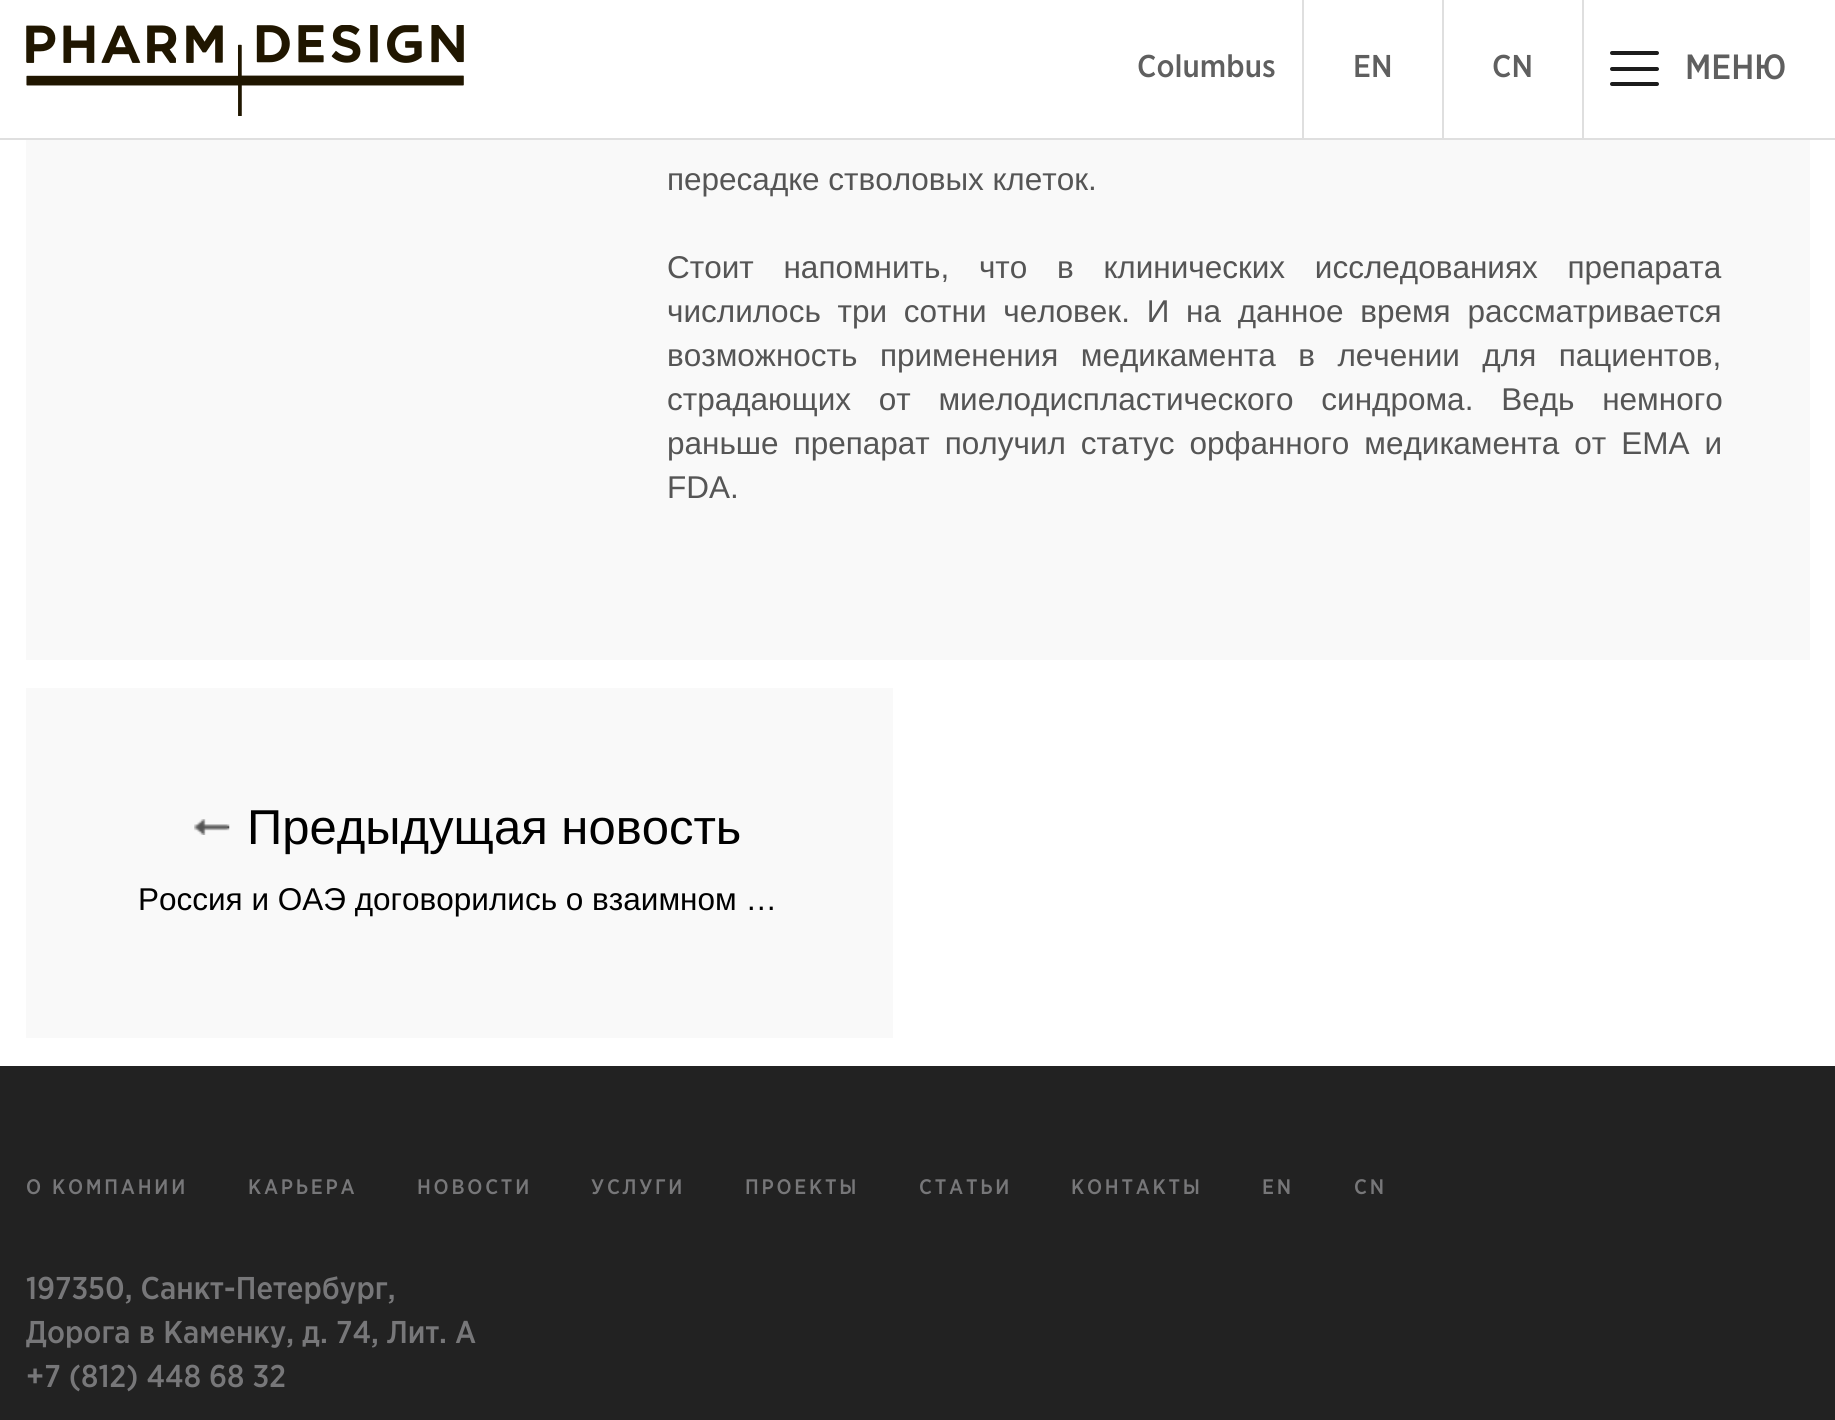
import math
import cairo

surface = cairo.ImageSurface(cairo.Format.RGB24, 1835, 1420)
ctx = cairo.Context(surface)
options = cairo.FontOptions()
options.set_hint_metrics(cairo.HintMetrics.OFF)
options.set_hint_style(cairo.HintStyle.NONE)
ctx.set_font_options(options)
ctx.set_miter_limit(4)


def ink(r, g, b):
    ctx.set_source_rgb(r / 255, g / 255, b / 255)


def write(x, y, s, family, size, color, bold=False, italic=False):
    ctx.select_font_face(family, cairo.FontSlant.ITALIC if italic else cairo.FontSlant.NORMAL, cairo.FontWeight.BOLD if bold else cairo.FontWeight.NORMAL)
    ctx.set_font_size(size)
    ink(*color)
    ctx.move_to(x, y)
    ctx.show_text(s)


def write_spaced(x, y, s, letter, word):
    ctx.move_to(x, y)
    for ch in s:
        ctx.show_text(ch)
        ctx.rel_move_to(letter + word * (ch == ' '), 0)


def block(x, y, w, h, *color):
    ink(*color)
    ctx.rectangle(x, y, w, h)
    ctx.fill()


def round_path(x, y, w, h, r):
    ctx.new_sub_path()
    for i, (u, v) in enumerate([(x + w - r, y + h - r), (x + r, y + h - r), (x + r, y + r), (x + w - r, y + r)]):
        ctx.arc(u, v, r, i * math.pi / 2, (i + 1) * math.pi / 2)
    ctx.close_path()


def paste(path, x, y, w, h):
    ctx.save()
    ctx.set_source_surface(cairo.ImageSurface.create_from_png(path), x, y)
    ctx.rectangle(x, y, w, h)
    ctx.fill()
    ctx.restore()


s1 = dict(family="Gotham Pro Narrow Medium", size=31.5, color=(95, 95, 95))
s2 = dict(family="Gotham Pro Narrow Medium", size=35, color=(95, 95, 95))
s3 = dict(family="Liberation Sans", size=31.5, color=(85, 85, 85))
s4 = dict(family="Liberation Sans", size=49, color=(0, 0, 0))
s5 = dict(family="Liberation Sans", size=31.5, color=(0, 0, 0))
s6 = dict(family="Gotham Pro Narrow Medium", size=31.5, color=(119, 119, 121))

ink(255, 255, 255)
ctx.paint()
block(0, 138, 1835, 2, 223, 223, 223)
paste("pic1.png", 26, 25, 438, 91)
write(1137, 77, "Columbus", **s1)
block(1302, 0, 2, 140, 223, 223, 223)
write(1353, 77, "EN", **s1)
block(1442, 0, 2, 140, 223, 223, 223)
write(1492, 77, "CN", **s1)
block(1582, 0, 2, 140, 223, 223, 223)
ink(28, 28, 28)
round_path(1610, 51, 49, 4, 2)
ctx.fill()
round_path(1610, 67, 49, 4, 2)
ctx.fill()
round_path(1610, 82, 49, 4, 2)
ctx.fill()
write(1685, 79, "МЕНЮ", **s2)
block(26, 140, 1784, 520, 249, 249, 249)
write(667, 190, "пересадке стволовых клеток.", **s3)
write_spaced(667, 278, "Стоит напомнить, что в клинических исследованиях препарата", 0, 21)
write_spaced(667, 322, "числилось три сотни человек. И на данное время рассматривается", 0, 8)
write_spaced(667, 366, "возможность применения медикамента в лечении для пациентов,", 0, 13.75)
write_spaced(667, 410, "страдающих от миелодиспластического синдрома. Ведь немного", 0, 19)
write_spaced(667, 454, "раньше препарат получил статус орфанного медикамента от EMA и", 0, 6.25)
write(667, 498, "FDA.", **s3)
block(26, 688, 867, 350, 249, 249, 249)
paste("pic2.png", 194, 819, 36, 16)
write(247, 844, "Предыдущая новость", **s4)
write(138, 910, "Россия и ОАЭ договорились о взаимном …", **s5)
block(0, 1066, 1835, 354, 34, 34, 34)
ctx.select_font_face("Gotham Pro Narrow Medium")
ctx.set_font_size(21)
ink(119, 119, 121)
write_spaced(26, 1194, "О КОМПАНИИ", 2.75, 0)
write_spaced(248, 1194, "КАРЬЕРА", 2.75, 0)
write_spaced(417, 1194, "НОВОСТИ", 2.75, 0)
write_spaced(591, 1194, "УСЛУГИ", 2.75, 0)
write_spaced(745, 1194, "ПРОЕКТЫ", 2.75, 0)
write_spaced(919, 1194, "СТАТЬИ", 2.75, 0)
write_spaced(1071, 1194, "КОНТАКТЫ", 2.75, 0)
write_spaced(1262, 1194, "EN", 2.75, 0)
write_spaced(1354, 1194, "CN", 2.75, 0)
write(26, 1299, "197350, Санкт-Петербург,", **s6)
write(26, 1343, "Дорога в Каменку, д. 74, Лит. А", **s6)
write(26, 1387, "+7 (812) 448 68 32", **s6)
surface.write_to_png("screenshot.png")
